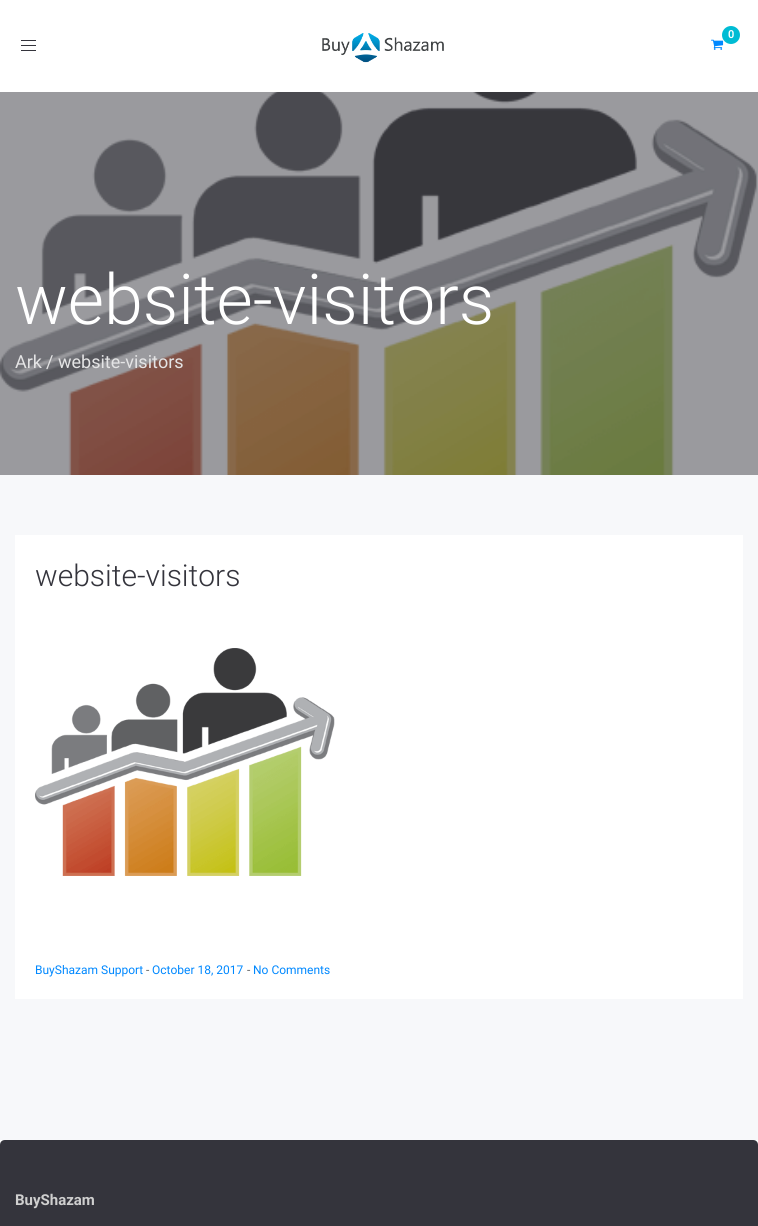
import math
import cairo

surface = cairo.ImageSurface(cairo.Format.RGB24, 758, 1226)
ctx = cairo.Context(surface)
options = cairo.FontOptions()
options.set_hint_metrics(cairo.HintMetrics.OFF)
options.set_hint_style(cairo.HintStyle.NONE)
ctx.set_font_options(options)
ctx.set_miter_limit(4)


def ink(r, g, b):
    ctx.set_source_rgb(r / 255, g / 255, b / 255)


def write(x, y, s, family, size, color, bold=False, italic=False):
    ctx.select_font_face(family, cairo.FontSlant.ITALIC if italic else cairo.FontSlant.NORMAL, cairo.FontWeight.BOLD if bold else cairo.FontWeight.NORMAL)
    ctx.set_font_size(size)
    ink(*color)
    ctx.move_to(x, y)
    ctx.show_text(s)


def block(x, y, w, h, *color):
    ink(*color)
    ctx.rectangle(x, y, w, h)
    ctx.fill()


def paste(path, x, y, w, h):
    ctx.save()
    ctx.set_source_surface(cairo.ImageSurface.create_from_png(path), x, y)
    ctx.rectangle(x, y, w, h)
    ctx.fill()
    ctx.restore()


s1 = dict(family="Roboto SemiBold", size=11, color=(255, 255, 255))
s2 = dict(family="Roboto Light", size=70, color=(255, 255, 255))
s3 = dict(family="Roboto", size=18, color=(228, 228, 229))
s4 = dict(family="Roboto Light", size=30, color=(52, 52, 60))
s5 = dict(family="Roboto", size=12, color=(0, 136, 255))
s6 = dict(family="Roboto", size=12, color=(96, 96, 96))
s7 = dict(family="Roboto", size=15, color=(207, 207, 207), bold=True)

ink(255, 255, 255)
ctx.paint()
block(0, 92, 758, 383, 154, 154, 158)
block(21, 50, 15, 1, 52, 52, 60)
block(21, 40, 15, 1, 52, 52, 60)
block(21, 45, 15, 1, 52, 52, 60)
paste("pic1.png", 322, 33, 122, 30)
paste("pic2.png", 711, 39, 13, 11)
ink(0, 188, 212)
ctx.arc(731, 35, 9, 0, 2 * math.pi)
ctx.fill()
write(728, 38, "0", **s1)
paste("pic3.png", 0, 92, 757, 383)
write(15, 324, "website-visitors", **s2)
write(15, 368, "Ark", **s3)
write(46, 368, "/", **s3)
write(58, 368, "website-visitors", **s3)
block(0, 475, 758, 665, 247, 248, 250)
block(15, 535, 728, 464, 255, 255, 255)
write(35, 586, "website-visitors", **s4)
paste("pic4.png", 35, 648, 300, 228)
write(35, 974, "BuyShazam Support", **s5)
write(146, 974, "-", **s6)
write(152, 974, "October 18, 2017", **s5)
write(247, 974, "-", **s6)
write(253, 974, "No Comments", **s5)
ink(52, 52, 60)
ctx.new_path()
ctx.move_to(5, 1140)
ctx.line_to(753, 1140)
ctx.curve_to(756, 1140, 758, 1142, 758, 1145)
ctx.line_to(758, 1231)
ctx.line_to(0, 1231)
ctx.line_to(0, 1145)
ctx.curve_to(0, 1142, 2, 1140, 5, 1140)
ctx.close_path()
ctx.fill()
write(15, 1205, "BuyShazam", **s7)
surface.write_to_png("screenshot.png")
